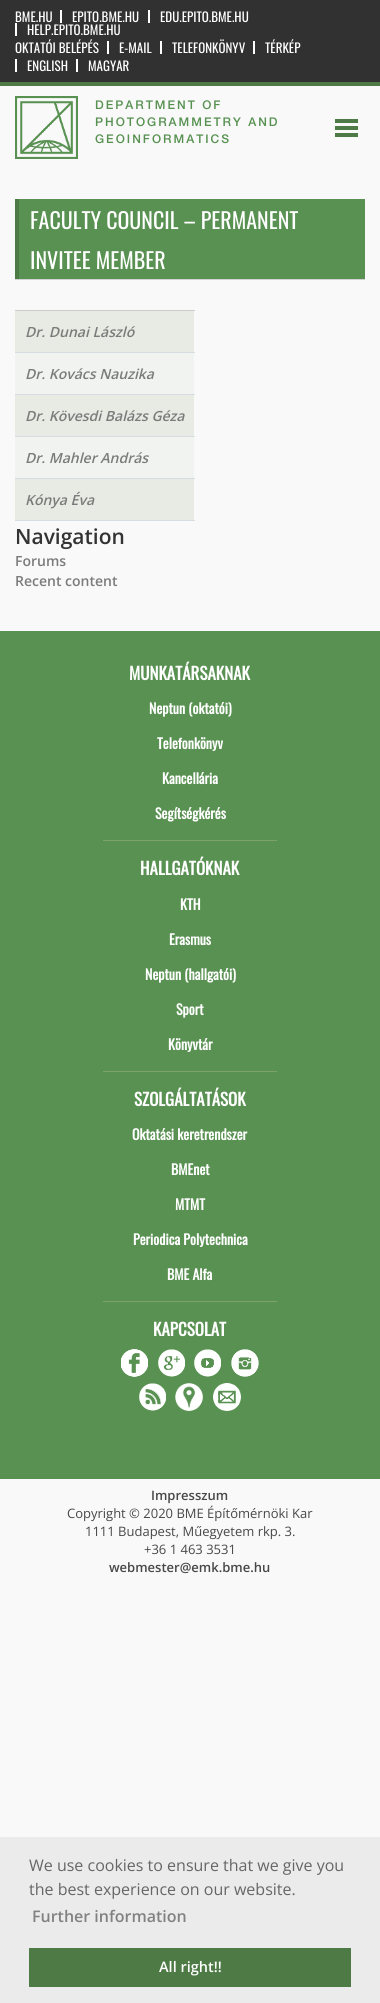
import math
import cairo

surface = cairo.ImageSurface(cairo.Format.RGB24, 380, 2003)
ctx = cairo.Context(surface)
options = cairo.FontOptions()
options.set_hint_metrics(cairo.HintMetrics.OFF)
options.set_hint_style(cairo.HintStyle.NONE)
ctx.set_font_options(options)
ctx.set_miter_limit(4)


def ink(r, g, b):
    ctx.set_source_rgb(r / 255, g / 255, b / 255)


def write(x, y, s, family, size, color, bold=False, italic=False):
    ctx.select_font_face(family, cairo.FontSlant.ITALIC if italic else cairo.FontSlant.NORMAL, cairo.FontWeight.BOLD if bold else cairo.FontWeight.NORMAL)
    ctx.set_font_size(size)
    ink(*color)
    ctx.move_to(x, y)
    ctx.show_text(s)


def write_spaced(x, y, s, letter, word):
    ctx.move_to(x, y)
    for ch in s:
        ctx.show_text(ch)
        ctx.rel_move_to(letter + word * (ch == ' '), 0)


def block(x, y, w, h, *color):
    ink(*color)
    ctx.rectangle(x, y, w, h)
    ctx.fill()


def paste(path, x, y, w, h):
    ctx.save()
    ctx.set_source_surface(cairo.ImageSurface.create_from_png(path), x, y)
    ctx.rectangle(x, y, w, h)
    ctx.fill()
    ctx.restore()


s1 = dict(family="Oswald", size=13, color=(255, 255, 255))
s2 = dict(family="Oswald", size=22, color=(255, 255, 255))
s3 = dict(family="Open Sans SemiBold", size=14, color=(123, 123, 123), italic=True)
s4 = dict(family="Open Sans SemiBold", size=21, color=(51, 51, 51))
s5 = dict(family="Open Sans SemiBold", size=14, color=(123, 123, 123))
s6 = dict(family="Oswald", size=17, color=(255, 255, 255), bold=True)
s7 = dict(family="Oswald", size=14, color=(255, 255, 255), bold=True)
s8 = dict(family="Open Sans SemiBold", size=13, color=(72, 72, 72))
s9 = dict(family="Open Sans", size=13, color=(72, 72, 72))
s10 = dict(family="Open Sans", size=16, color=(102, 102, 102))
s11 = dict(family="Open Sans SemiBold", size=16, color=(129, 129, 129))
s12 = dict(family="Open Sans SemiBold", size=14.5, color=(255, 255, 255))

ink(249, 249, 250)
ctx.paint()
block(0, 0, 380, 82, 49, 49, 49)
block(0, 82, 380, 4, 78, 122, 69)
write(15, 22, "BME.HU", **s1)
block(60, 10, 2, 13, 255, 255, 255)
write(72, 22, "EPITO.BME.HU", **s1)
block(148, 10, 2, 13, 255, 255, 255)
write(160, 22, "EDU.EPITO.BME.HU", **s1)
block(15, 23, 2, 13, 255, 255, 255)
write(27, 35, "HELP.EPITO.BME.HU", **s1)
write(15, 53, "OKTATÓI BELÉPÉS", **s1)
block(107, 41, 2, 13, 255, 255, 255)
write(119, 53, "E-MAIL", **s1)
block(160, 41, 2, 13, 255, 255, 255)
write(172, 53, "TELEFONKÖNYV", **s1)
block(253, 41, 2, 13, 255, 255, 255)
write(265, 53, "TÉRKÉP", **s1)
block(15, 59, 2, 13, 255, 255, 255)
write(27, 71, "ENGLISH", **s1)
block(76, 59, 2, 13, 255, 255, 255)
write(88, 71, "MAGYAR", **s1)
paste("pic1.png", 15, 96, 63, 63)
ctx.select_font_face("Helvetica Neue Medium")
ctx.set_font_size(12)
ink(88, 145, 81)
write_spaced(95, 109, "DEPARTMENT OF", 2, 0)
write_spaced(95, 126, "PHOTOGRAMMETRY AND", 2, 0)
write_spaced(95, 143, "GEOINFORMATICS", 2, 0)
block(335, 119, 23, 4, 78, 122, 69)
block(335, 126, 23, 4, 78, 122, 69)
block(335, 133, 23, 4, 78, 122, 69)
block(15, 279, 350, 1, 210, 210, 210)
block(19, 199, 346, 80, 88, 145, 81)
block(15, 199, 4, 80, 78, 122, 69)
write(30, 229, "FACULTY COUNCIL – PERMANENT", **s2)
write(30, 269, "INVITEE MEMBER", **s2)
block(15, 310, 180, 1, 204, 204, 204)
block(15, 311, 179, 41, 232, 235, 228)
block(15, 352, 180, 1, 213, 220, 226)
write(25, 337, "Dr. Dunai László", **s3)
block(15, 353, 179, 41, 241, 243, 240)
block(15, 394, 180, 1, 213, 220, 226)
write(25, 379, "Dr. Kovács Nauzika", **s3)
block(15, 395, 179, 41, 232, 235, 228)
block(15, 436, 180, 1, 213, 220, 226)
write(25, 421, "Dr. Kövesdi Balázs Géza", **s3)
block(15, 437, 179, 41, 241, 243, 240)
block(15, 478, 180, 1, 213, 220, 226)
write(25, 463, "Dr. Mahler András", **s3)
block(15, 479, 179, 41, 232, 235, 228)
block(15, 520, 180, 1, 213, 220, 226)
write(25, 505, "Kónya Éva", **s3)
write(15, 544, "Navigation", **s4)
write(15, 566, "Forums", **s5)
write(15, 586, "Recent content", **s5)
block(0, 631, 380, 848, 88, 145, 81)
block(103, 840, 174, 1, 125, 162, 110)
write(129, 680, "MUNKATÁRSAKNAK", **s6)
write(149, 714, "Neptun (oktatói)", **s7)
write(157, 749, "Telefonkönyv", **s7)
write(162, 784, "Kancellária", **s7)
write(155, 819, "Segítségkérés", **s7)
block(103, 1071, 174, 1, 125, 162, 110)
write(140, 875, "HALLGATÓKNAK", **s6)
write(180, 910, "KTH", **s7)
write(169, 945, "Erasmus", **s7)
write(145, 980, "Neptun (hallgatói)", **s7)
write(176, 1015, "Sport", **s7)
write(168, 1050, "Könyvtár", **s7)
block(103, 1301, 174, 1, 125, 162, 110)
write(134, 1106, "SZOLGÁLTATÁSOK", **s6)
write(132, 1140, "Oktatási keretrendszer", **s7)
write(171, 1175, "BMEnet", **s7)
write(175, 1210, "MTMT", **s7)
write(133, 1245, "Periodica Polytechnica", **s7)
write(167, 1280, "BME Alfa", **s7)
write(153, 1336, "KAPCSOLAT", **s6)
paste("pic2.png", 121, 1349, 27, 28)
paste("pic3.png", 158, 1349, 27, 28)
paste("pic4.png", 194, 1349, 27, 28)
paste("pic5.png", 231, 1349, 28, 28)
paste("pic6.png", 139, 1383, 27, 28)
paste("pic7.png", 175, 1383, 28, 28)
paste("pic8.png", 213, 1383, 28, 28)
write(151, 1500, "Impresszum", **s8)
write(67, 1518, "Copyright © 2020 BME Építőmérnöki Kar", **s9)
write(85, 1536, "1111 Budapest, Műegyetem rkp. 3.", **s9)
write(144, 1554, "+36 1 463 3531", **s9)
write(109, 1572, "webmester@emk.bme.hu", **s8)
block(0, 1837, 380, 166, 235, 235, 235)
write(29, 1871, "We use cookies to ensure that we give you", **s10)
write(29, 1895, "the best experience on our website.", **s10)
write(32, 1922, "Further information", **s11)
block(29, 1948, 322, 39, 78, 122, 69)
write(159, 1972, "All right!!", **s12)
surface.write_to_png("screenshot.png")
